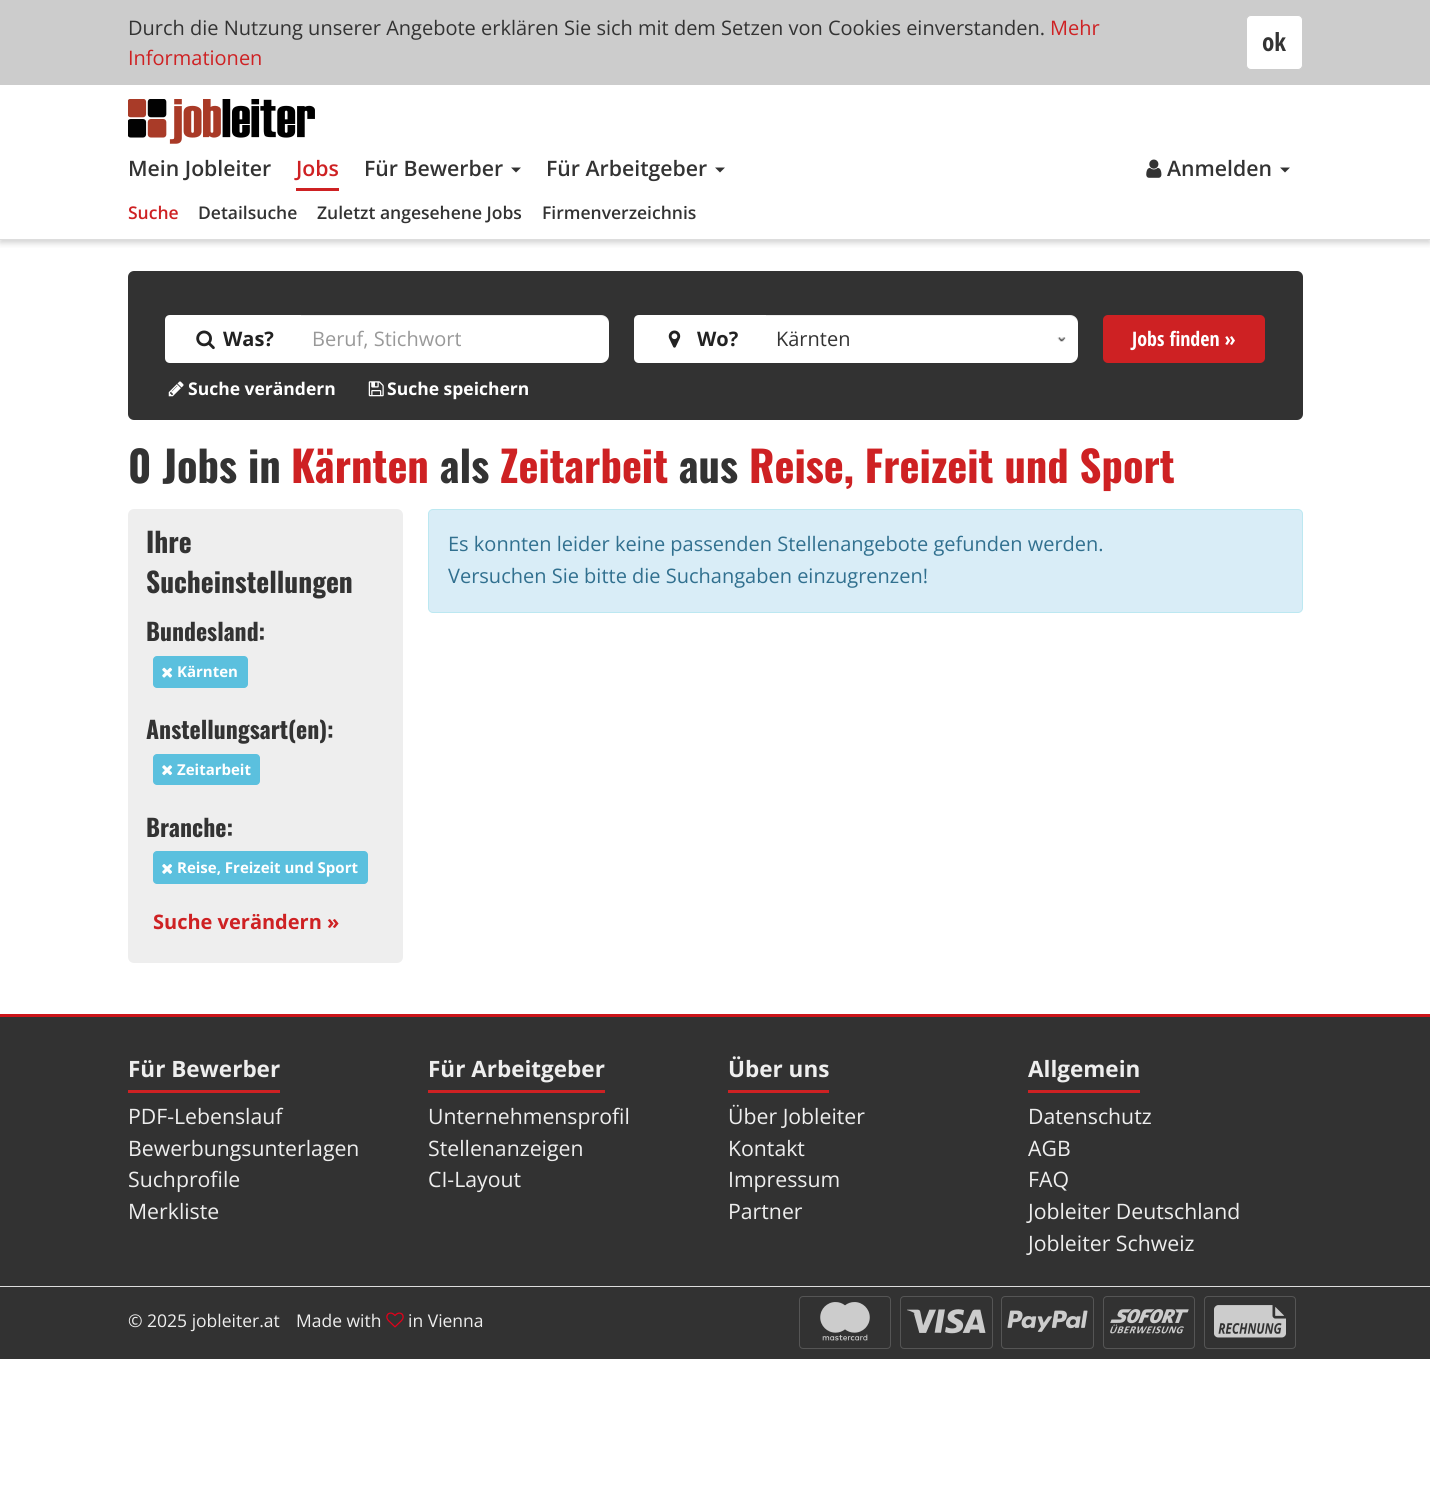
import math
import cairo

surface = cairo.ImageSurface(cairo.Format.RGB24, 1430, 1493)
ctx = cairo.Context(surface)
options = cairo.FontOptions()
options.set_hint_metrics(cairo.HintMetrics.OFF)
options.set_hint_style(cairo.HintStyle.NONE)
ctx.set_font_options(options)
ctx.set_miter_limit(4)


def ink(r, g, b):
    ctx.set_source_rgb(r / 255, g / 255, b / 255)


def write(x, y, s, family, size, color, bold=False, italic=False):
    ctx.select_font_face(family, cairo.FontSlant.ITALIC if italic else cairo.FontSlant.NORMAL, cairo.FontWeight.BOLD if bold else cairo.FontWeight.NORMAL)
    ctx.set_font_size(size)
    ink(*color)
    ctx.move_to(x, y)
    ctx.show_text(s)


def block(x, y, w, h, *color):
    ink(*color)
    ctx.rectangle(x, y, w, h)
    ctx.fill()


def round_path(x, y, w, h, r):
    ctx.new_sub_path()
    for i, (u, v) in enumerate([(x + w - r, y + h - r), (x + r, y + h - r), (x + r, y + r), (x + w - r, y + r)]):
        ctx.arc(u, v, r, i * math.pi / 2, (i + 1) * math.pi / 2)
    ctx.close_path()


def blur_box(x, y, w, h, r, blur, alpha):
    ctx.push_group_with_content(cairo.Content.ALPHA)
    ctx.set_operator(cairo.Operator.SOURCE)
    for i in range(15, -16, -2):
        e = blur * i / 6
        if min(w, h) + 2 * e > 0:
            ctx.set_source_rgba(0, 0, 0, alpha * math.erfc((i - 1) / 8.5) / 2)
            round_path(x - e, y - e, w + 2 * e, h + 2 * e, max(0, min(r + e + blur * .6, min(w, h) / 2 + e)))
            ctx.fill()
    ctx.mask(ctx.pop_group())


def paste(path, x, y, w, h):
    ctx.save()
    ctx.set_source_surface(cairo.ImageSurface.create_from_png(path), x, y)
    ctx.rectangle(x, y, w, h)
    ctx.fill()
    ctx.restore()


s1 = dict(family="Open Sans", size=20, color=(51, 51, 51))
s2 = dict(family="Open Sans", size=20, color=(206, 33, 35))
s3 = dict(family="Open Sans Condensed", size=25, color=(51, 51, 51), bold=True)
s4 = dict(family="Open Sans SemiBold", size=21.25, color=(51, 51, 51))
s5 = dict(family="Open Sans SemiBold", size=21.25, color=(206, 33, 35))
s6 = dict(family="Open Sans SemiBold", size=17.5, color=(206, 33, 35))
s7 = dict(family="Open Sans SemiBold", size=17.5, color=(51, 51, 51))
s8 = dict(family="Open Sans", size=20, color=(34, 34, 34), bold=True)
s9 = dict(family="Open Sans", size=20, color=(153, 153, 153))
s10 = dict(family="Open Sans Condensed", size=20, color=(255, 255, 255), bold=True)
s11 = dict(family="Open Sans", size=17.5, color=(255, 255, 255), bold=True)
s12 = dict(family="Oswald", size=42.5, color=(51, 51, 51), bold=True)
s13 = dict(family="Oswald", size=42.5, color=(206, 33, 35), bold=True)
s14 = dict(family="Oswald", size=27.5, color=(51, 51, 51), bold=True)
s15 = dict(family="Oswald", size=23.75, color=(51, 51, 51), bold=True)
s16 = dict(family="Open Sans", size=15, color=(255, 255, 255), bold=True)
s17 = dict(family="Open Sans", size=20, color=(206, 33, 35), bold=True)
s18 = dict(family="Open Sans", size=20, color=(49, 112, 143))
s19 = dict(family="Open Sans", size=22.5, color=(238, 238, 238), bold=True)
s20 = dict(family="Open Sans", size=21.25, color=(238, 238, 238))
s21 = dict(family="Open Sans", size=17.5, color=(238, 238, 238))

ink(255, 255, 255)
ctx.paint()
ctx.save()
ctx.rectangle(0, 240, 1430, 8)
ctx.clip()
ink(144, 144, 144)
blur_box(0, 88, 1430, 155, 0, 3, 0.4)
ctx.restore()
block(0, 0, 1430, 85, 204, 204, 204)
write(128, 35, "Durch die Nutzung unserer Angebote erklären Sie sich mit dem Setzen von Cookies einverstanden.", **s1)
write(1050, 35, "Mehr", **s2)
write(128, 65, "Informationen", **s2)
ink(255, 255, 255)
round_path(1246.5, 15.5, 56, 54, 4.5)
ctx.fill_preserve()
ink(204, 204, 204)
ctx.set_line_width(1)
ctx.stroke()
write(1262, 51, "ok", **s3)
block(0, 239, 1430, 1, 221, 221, 221)
paste("pic1.png", 128, 99, 187, 45)
write(128, 176, "Mein Jobleiter", **s4)
write(296, 176, "Jobs", **s5)
block(296, 188, 43, 3, 206, 33, 35)
write(364, 176, "Für Bewerber", **s4)
ctx.new_path()
ctx.move_to(511, 167.5)
ctx.line_to(521, 167.5)
ctx.line_to(516, 172.5)
ctx.close_path()
ctx.fill()
write(546, 176, "Für Arbeitgeber", **s4)
ctx.new_path()
ctx.move_to(715, 167.5)
ctx.line_to(725, 167.5)
ctx.line_to(720, 172.5)
ctx.close_path()
ctx.fill()
paste("pic2.png", 1146, 159, 16, 19)
write(1167, 176, "Anmelden", **s4)
ctx.new_path()
ctx.move_to(1280, 167.5)
ctx.line_to(1290, 167.5)
ctx.line_to(1285, 172.5)
ctx.close_path()
ctx.fill()
write(128, 219, "Suche", **s6)
write(198, 219, "Detailsuche", **s7)
write(317, 219, "Zuletzt angesehene Jobs", **s7)
write(542, 219, "Firmenverzeichnis", **s7)
ink(50, 50, 50)
round_path(128, 271, 1175, 149, 6)
ctx.fill()
ink(255, 255, 255)
ctx.new_path()
ctx.move_to(170, 315)
ctx.line_to(301, 315)
ctx.line_to(301, 363)
ctx.line_to(170, 363)
ctx.curve_to(167, 363, 165, 361, 165, 358)
ctx.line_to(165, 320)
ctx.curve_to(165, 317, 167, 315, 170, 315)
ctx.close_path()
ctx.fill()
paste("pic3.png", 196, 330, 19, 20)
write(223, 346, "Was?", **s8)
ink(255, 255, 255)
ctx.new_path()
ctx.move_to(301, 315)
ctx.line_to(601, 315)
ctx.curve_to(605.5, 315, 609, 318.5, 609, 323)
ctx.line_to(609, 355)
ctx.curve_to(609, 359.5, 605.5, 363, 601, 363)
ctx.line_to(301, 363)
ctx.close_path()
ctx.fill()
ctx.set_source_rgba(0, 0, 0, 0.07)
ctx.new_path()
ctx.move_to(301, 316)
ctx.line_to(601, 316)
ctx.curve_to(605, 316, 609, 320, 609, 324)
ctx.curve_to(609, 319, 606, 315, 601, 315)
ctx.line_to(301, 315)
ctx.close_path()
ctx.fill()
write(312, 346, "Beruf, Stichwort", **s9)
ink(255, 255, 255)
ctx.new_path()
ctx.move_to(639, 315)
ctx.line_to(766, 315)
ctx.line_to(766, 363)
ctx.line_to(639, 363)
ctx.curve_to(636, 363, 634, 361, 634, 358)
ctx.line_to(634, 320)
ctx.curve_to(634, 317, 636, 315, 639, 315)
ctx.close_path()
ctx.fill()
paste("pic4.png", 668, 330, 13, 18)
write(697, 346, "Wo?", **s8)
ink(255, 255, 255)
ctx.new_path()
ctx.move_to(766, 315)
ctx.line_to(1070, 315)
ctx.curve_to(1074.5, 315, 1078, 318.5, 1078, 323)
ctx.line_to(1078, 355)
ctx.curve_to(1078, 359.5, 1074.5, 363, 1070, 363)
ctx.line_to(766, 363)
ctx.close_path()
ctx.fill()
paste("pic5.png", 1057, 337, 9, 5)
ctx.set_source_rgba(0, 0, 0, 0.07)
ctx.new_path()
ctx.move_to(766, 316)
ctx.line_to(1070, 316)
ctx.curve_to(1074, 316, 1078, 320, 1078, 324)
ctx.curve_to(1078, 319, 1075, 315, 1070, 315)
ctx.line_to(766, 315)
ctx.close_path()
ctx.fill()
write(776, 346, "Kärnten", **s1)
ink(206, 33, 35)
round_path(1103, 315, 162, 48, 5)
ctx.fill()
write(1132, 346, "Jobs finden »", **s10)
paste("pic6.png", 168, 381, 16, 16)
write(188, 395, "Suche verändern", **s11)
paste("pic7.png", 368, 381, 16, 16)
write(387, 395, "Suche speichern", **s11)
write(128, 483, "0 Jobs in", **s12)
write(291, 483, "Kärnten", **s13)
write(440, 483, "als", **s12)
write(500, 483, "Zeitarbeit", **s13)
write(679, 483, "aus", **s12)
write(749, 483, "Reise, Freizeit und Sport", **s13)
ink(238, 238, 238)
round_path(128, 509, 275, 454, 6)
ctx.fill()
write(146, 553, "Ihre", **s14)
write(146, 593, "Sucheinstellungen", **s14)
write(146, 641, "Bundesland:", **s15)
ink(91, 192, 222)
round_path(153, 656, 95, 32, 4)
ctx.fill()
paste("pic8.png", 162, 667, 11, 11)
write(177, 677, "Kärnten", **s16)
write(146, 739, "Anstellungsart(en):", **s15)
ink(91, 192, 222)
round_path(153, 754, 107, 31, 4)
ctx.fill()
paste("pic9.png", 162, 765, 11, 11)
write(177, 775, "Zeitarbeit", **s16)
write(146, 837, "Branche:", **s15)
ink(91, 192, 222)
round_path(153, 851, 215, 33, 4)
ctx.fill()
paste("pic10.png", 162, 864, 10, 10)
write(177, 873, "Reise, Freizeit und Sport", **s16)
write(153, 929, "Suche verändern »", **s17)
ink(217, 237, 247)
round_path(428.5, 509.5, 874, 103, 4.5)
ctx.fill_preserve()
ink(188, 232, 241)
ctx.stroke()
write(448, 551, "Es konnten leider keine passenden Stellenangebote gefunden werden.", **s18)
write(448, 583, "Versuchen Sie bitte die Suchangaben einzugrenzen!", **s18)
block(0, 1017, 1430, 342, 50, 50, 50)
block(0, 1014, 1430, 3, 204, 20, 26)
block(128, 1090, 152, 3, 206, 33, 35)
write(128, 1077, "Für Bewerber", **s19)
write(128, 1124, "PDF-Lebenslauf", **s20)
write(128, 1156, "Bewerbungsunterlagen", **s20)
write(128, 1187, "Suchprofile", **s20)
write(128, 1219, "Merkliste", **s20)
block(428, 1090, 177, 3, 206, 33, 35)
write(428, 1077, "Für Arbeitgeber", **s19)
write(428, 1124, "Unternehmensprofil", **s20)
write(428, 1156, "Stellenanzeigen", **s20)
write(428, 1187, "CI-Layout", **s20)
block(728, 1090, 101, 3, 206, 33, 35)
write(728, 1077, "Über uns", **s19)
write(728, 1124, "Über Jobleiter", **s20)
write(728, 1156, "Kontakt", **s20)
write(728, 1187, "Impressum", **s20)
write(728, 1219, "Partner", **s20)
block(1028, 1090, 112, 3, 206, 33, 35)
write(1028, 1077, "Allgemein", **s19)
write(1028, 1124, "Datenschutz", **s20)
write(1028, 1156, "AGB", **s20)
write(1028, 1187, "FAQ", **s20)
write(1028, 1219, "Jobleiter Deutschland", **s20)
write(1028, 1251, "Jobleiter Schweiz", **s20)
block(0, 1286, 1430, 1, 221, 221, 221)
write(128, 1327, "© 2025 jobleiter.at", **s21)
write(296, 1327, "Made with", **s21)
paste("pic11.png", 386, 1312, 18, 16)
write(408, 1327, "in Vienna", **s21)
round_path(799.5, 1296.5, 91, 52, 3.5)
ink(85, 85, 85)
ctx.stroke()
paste("pic12.png", 820, 1302, 50, 39)
round_path(900.5, 1296.5, 92, 52, 3.5)
ctx.stroke()
paste("pic13.png", 907, 1309, 79, 25)
round_path(1001.5, 1296.5, 92, 52, 3.5)
ctx.stroke()
paste("pic14.png", 1007, 1310, 81, 22)
round_path(1103.5, 1296.5, 91, 52, 3.5)
ctx.stroke()
paste("pic15.png", 1110, 1309, 79, 25)
round_path(1204.5, 1296.5, 91, 52, 3.5)
ctx.stroke()
paste("pic16.png", 1214, 1305, 72, 33)
surface.write_to_png("screenshot.png")
